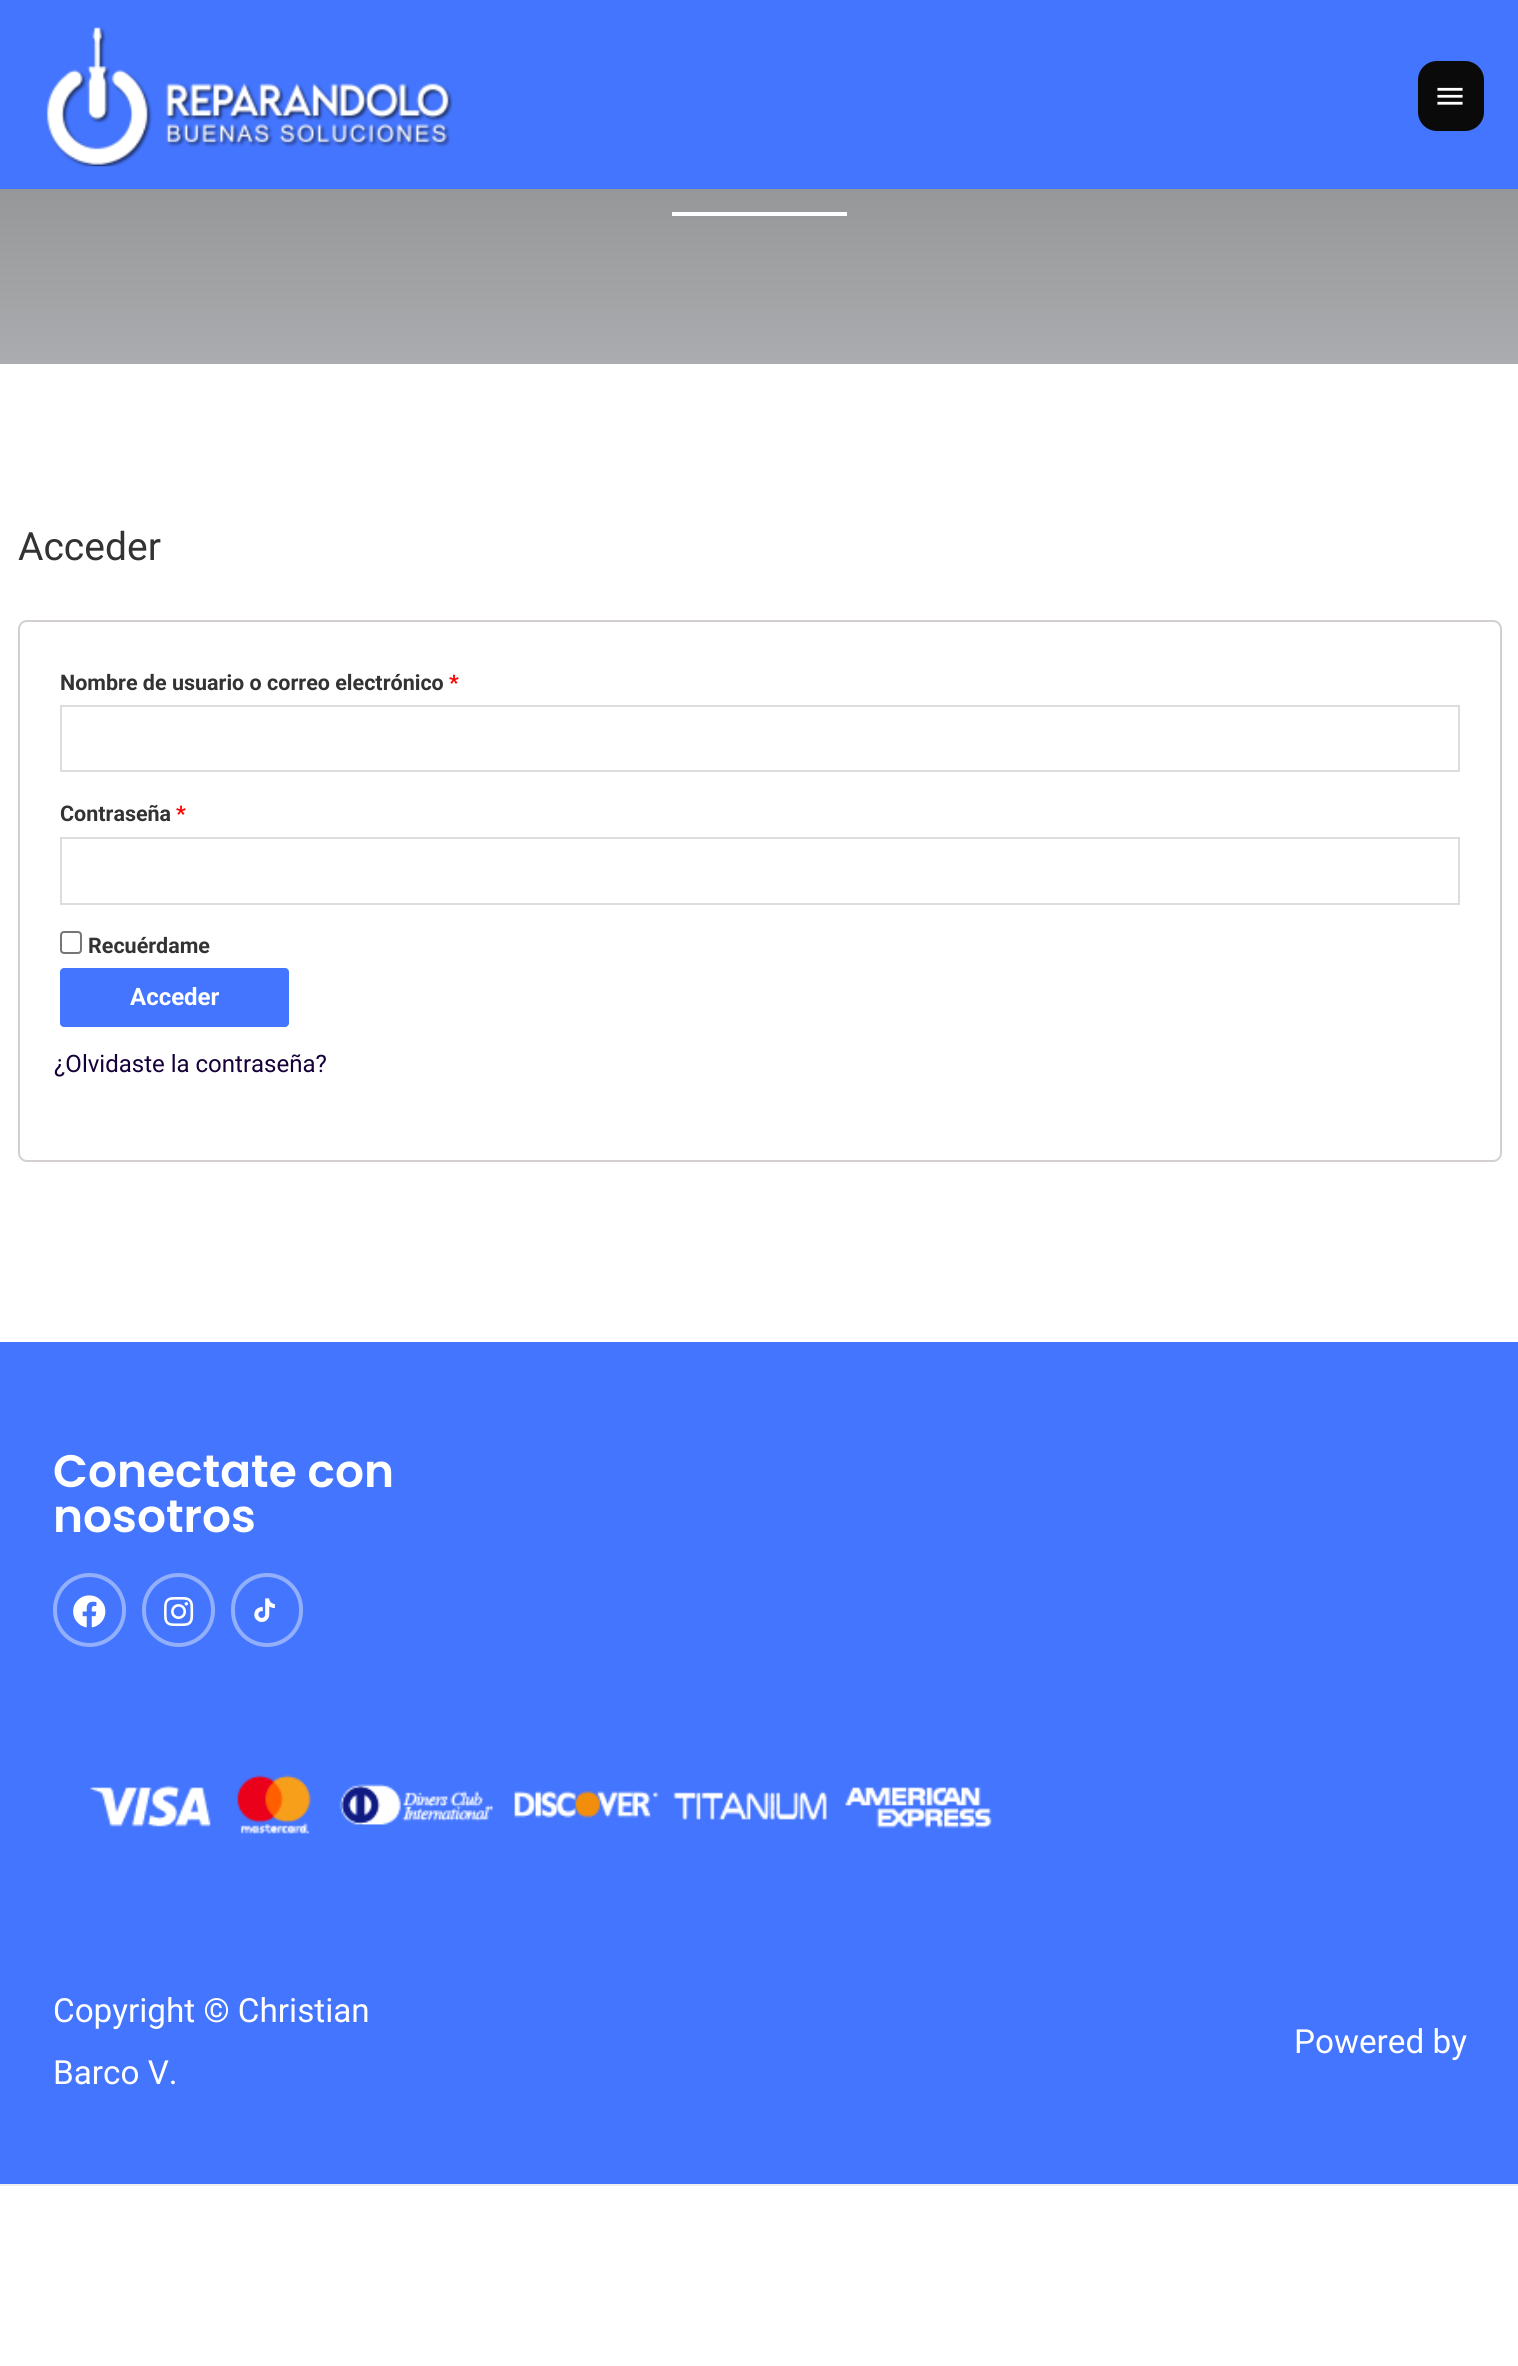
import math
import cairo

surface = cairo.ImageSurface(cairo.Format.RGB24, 1518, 2366)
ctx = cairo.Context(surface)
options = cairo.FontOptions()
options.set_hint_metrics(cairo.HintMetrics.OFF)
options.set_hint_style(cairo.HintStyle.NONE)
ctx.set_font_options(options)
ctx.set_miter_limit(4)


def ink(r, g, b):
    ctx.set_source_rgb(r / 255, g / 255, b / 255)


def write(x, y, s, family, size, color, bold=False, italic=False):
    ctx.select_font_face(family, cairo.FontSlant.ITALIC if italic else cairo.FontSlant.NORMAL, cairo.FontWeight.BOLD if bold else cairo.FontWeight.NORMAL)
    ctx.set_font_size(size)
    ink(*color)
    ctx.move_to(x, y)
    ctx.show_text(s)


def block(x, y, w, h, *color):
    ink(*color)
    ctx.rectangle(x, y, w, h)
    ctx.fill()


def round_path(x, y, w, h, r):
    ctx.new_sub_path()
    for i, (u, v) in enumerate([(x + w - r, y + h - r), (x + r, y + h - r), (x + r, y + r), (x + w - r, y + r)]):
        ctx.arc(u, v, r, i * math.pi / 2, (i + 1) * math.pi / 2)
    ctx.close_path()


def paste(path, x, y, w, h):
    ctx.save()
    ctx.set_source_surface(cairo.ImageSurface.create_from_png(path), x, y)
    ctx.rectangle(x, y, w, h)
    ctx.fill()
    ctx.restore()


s1 = dict(family="Roboto", size=39, color=(51, 51, 51))
s2 = dict(family="Roboto", size=21.5, color=(51, 51, 51), bold=True)
s3 = dict(family="Roboto", size=21.5, color=(255, 0, 0), bold=True)
s4 = dict(family="Roboto", size=24, color=(255, 255, 255), bold=True)
s5 = dict(family="Roboto", size=24, color=(21, 0, 57))
s6 = dict(family="Poppins SemiBold", size=45.5, color=(255, 255, 255))
s7 = dict(family="Roboto", size=33.25, color=(255, 255, 255))

ink(255, 255, 255)
ctx.paint()
block(0, 0, 1518, 189, 68, 117, 255)
paste("pic1.png", 46, 26, 407, 141)
ink(10, 10, 10)
round_path(1418, 61, 66, 70, 19)
ctx.fill()
paste("pic2.png", 1437, 87, 26, 18)
gradient = cairo.LinearGradient(760, 0, 760, 364)
gradient.add_color_stop_rgba(0, 0.502, 0.502, 0.502, 1)
gradient.add_color_stop_rgba(1, 0.667, 0.675, 0.686, 1)
ctx.set_source(gradient)
ctx.rectangle(0, 189, 1518, 175)
ctx.fill()
block(672, 212, 175, 4, 255, 255, 255)
write(18, 560, "Acceder", **s1)
round_path(19, 621, 1482, 540, 8)
ink(211, 206, 210)
ctx.stroke()
write(60, 690, "Nombre de usuario o correo electrónico", **s2)
write(449, 690, "*", **s3)
ctx.rectangle(61, 706, 1398, 65)
ink(221, 221, 221)
ctx.stroke()
write(60, 821, "Contraseña", **s2)
write(176, 821, "*", **s3)
ctx.rectangle(61, 838, 1398, 66)
ink(221, 221, 221)
ctx.stroke()
round_path(61, 932, 20, 21, 3)
ink(118, 118, 118)
ctx.stroke()
write(88, 953, "Recuérdame", **s2)
ink(68, 117, 255)
round_path(60, 968, 229, 59, 4)
ctx.fill()
write(130, 1005, "Acceder", **s4)
write(54, 1072, "¿Olvidaste la contraseña?", **s5)
block(0, 1342, 1518, 842, 68, 117, 255)
write(53, 1487, "Conectate con", **s6)
write(53, 1532, "nosotros", **s6)
round_path(55, 1575, 69, 70, 34.5)
ink(146, 175, 251)
ctx.set_line_width(4)
ctx.stroke()
paste("pic3.png", 73, 1595, 33, 33)
round_path(144, 1575, 69, 70, 34.5)
ctx.stroke()
paste("pic4.png", 164, 1597, 30, 30)
round_path(233, 1575, 68, 70, 34)
ctx.stroke()
paste("pic5.png", 254, 1598, 21, 24)
paste("pic6.png", 90, 1775, 902, 59)
write(53, 2022, "Copyright © Christian", **s7)
write(53, 2084, "Barco V.", **s7)
write(1294, 2053, "Powered by", **s7)
block(0, 2184, 1518, 2, 238, 238, 238)
surface.write_to_png("screenshot.png")
